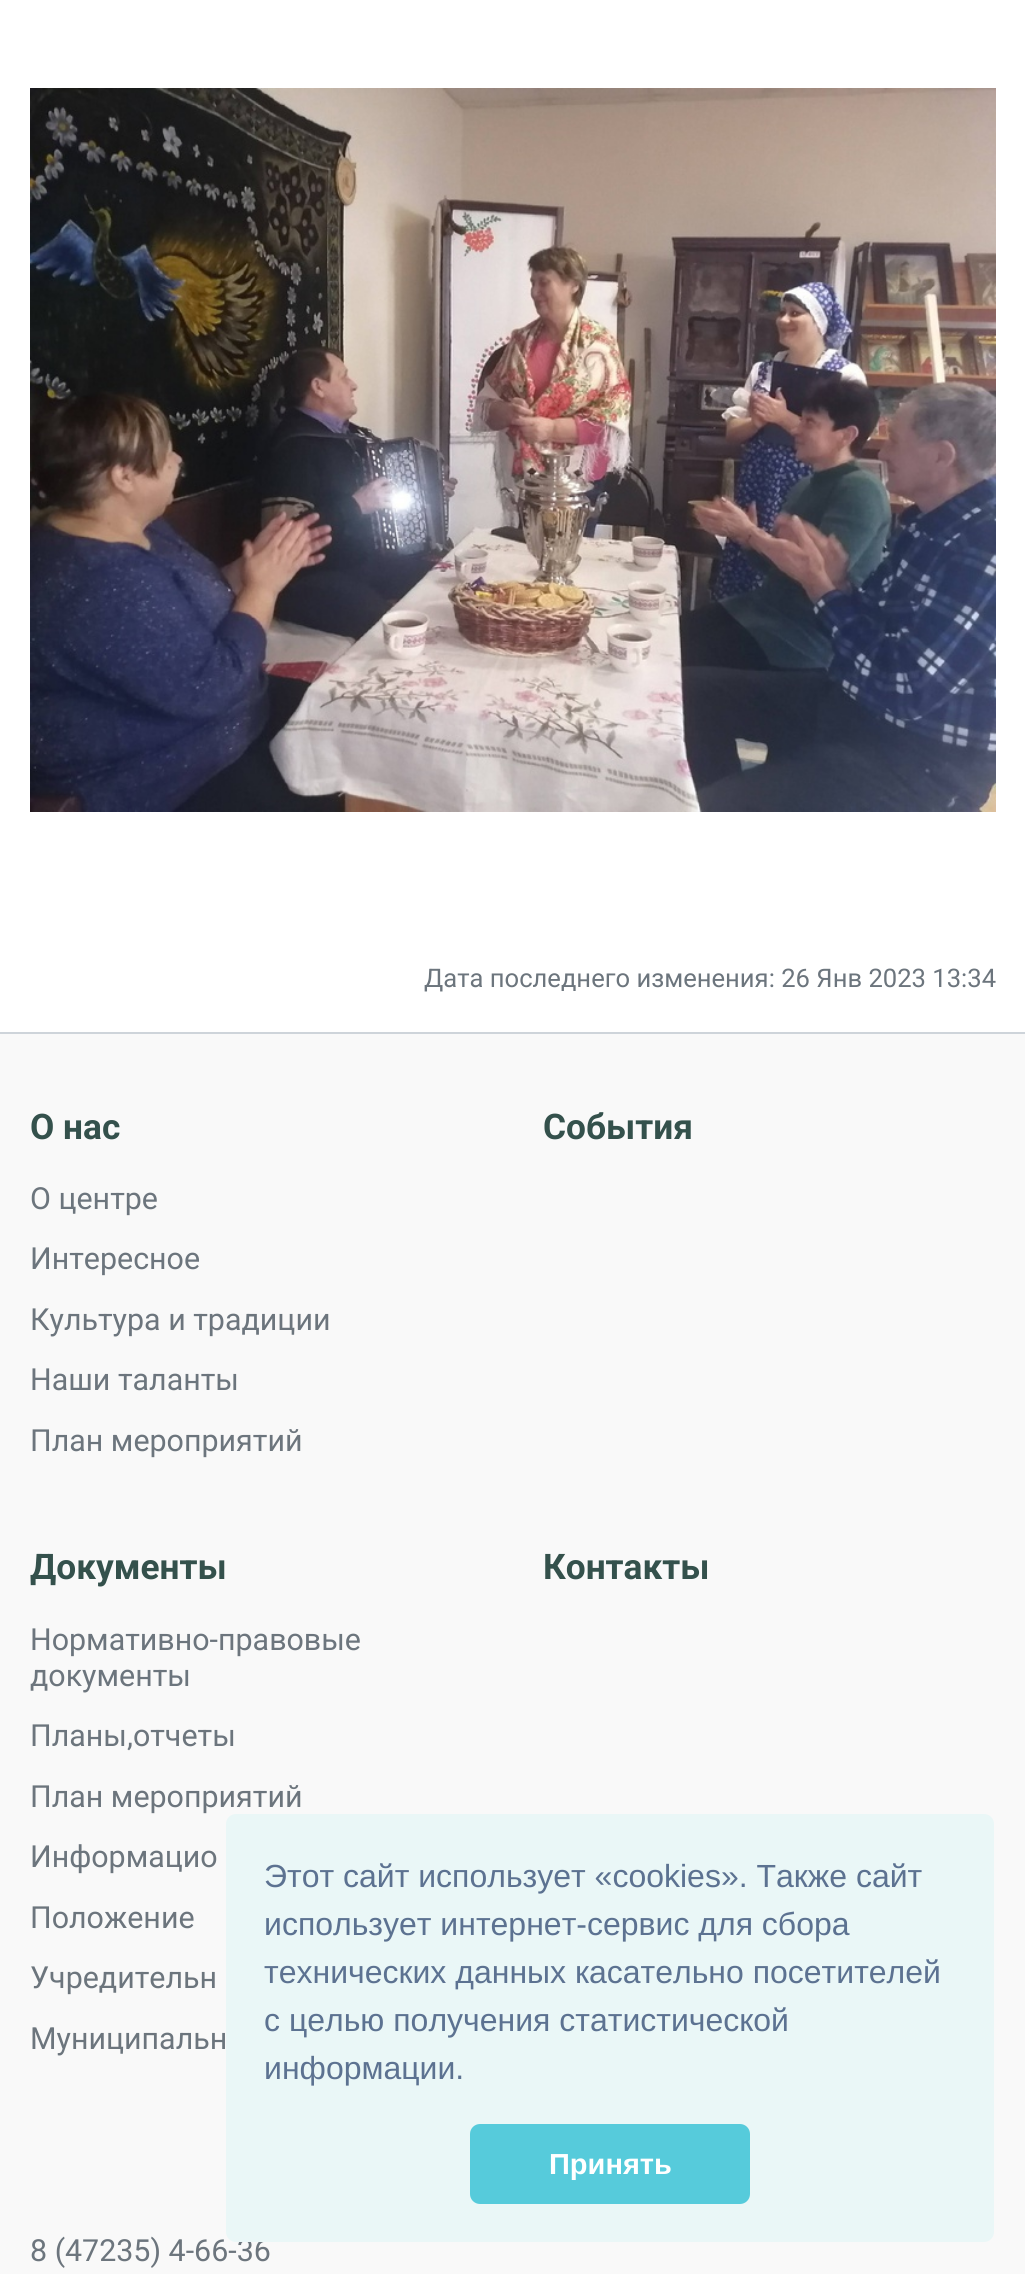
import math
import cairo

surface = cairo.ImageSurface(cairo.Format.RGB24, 1025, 2274)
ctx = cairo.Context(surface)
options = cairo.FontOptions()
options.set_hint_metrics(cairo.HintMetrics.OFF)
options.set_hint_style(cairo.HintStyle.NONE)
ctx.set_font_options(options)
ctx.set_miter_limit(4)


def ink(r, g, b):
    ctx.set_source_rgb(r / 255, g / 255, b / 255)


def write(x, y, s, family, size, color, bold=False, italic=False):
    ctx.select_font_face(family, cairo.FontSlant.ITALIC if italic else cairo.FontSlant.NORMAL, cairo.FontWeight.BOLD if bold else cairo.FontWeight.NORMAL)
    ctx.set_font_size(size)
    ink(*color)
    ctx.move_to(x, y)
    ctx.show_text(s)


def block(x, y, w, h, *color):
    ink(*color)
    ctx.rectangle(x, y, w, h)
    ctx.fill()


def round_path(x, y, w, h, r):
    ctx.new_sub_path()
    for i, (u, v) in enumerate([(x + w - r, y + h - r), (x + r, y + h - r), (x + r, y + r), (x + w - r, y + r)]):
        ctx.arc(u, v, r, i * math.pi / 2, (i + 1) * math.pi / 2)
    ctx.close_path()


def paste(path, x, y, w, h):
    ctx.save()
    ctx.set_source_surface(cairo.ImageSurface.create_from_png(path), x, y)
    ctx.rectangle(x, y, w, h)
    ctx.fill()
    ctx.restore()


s1 = dict(family="Roboto", size=25.6, color=(108, 117, 125))
s2 = dict(family="Roboto", size=35.25, color=(52, 81, 76), bold=True)
s3 = dict(family="Roboto", size=30.4, color=(108, 117, 125))
s4 = dict(family="Liberation Sans", size=32, color=(92, 114, 145))
s5 = dict(family="Liberation Sans", size=29, color=(255, 255, 255), bold=True)

ink(255, 255, 255)
ctx.paint()
paste("pic1.png", 30, 88, 966, 724)
write(424, 987, "Дата последнего изменения: 26 Янв 2023 13:34", **s1)
block(0, 1034, 1025, 1240, 249, 249, 249)
block(0, 1032, 1025, 2, 206, 212, 218)
write(30, 1139, "О нас", **s2)
write(30, 1209, "О центре", **s3)
write(30, 1269, "Интересное", **s3)
write(30, 1330, "Культура и традиции", **s3)
write(30, 1390, "Наши таланты", **s3)
write(30, 1451, "План мероприятий", **s3)
write(543, 1139, "События", **s2)
write(30, 1579, "Документы", **s2)
write(30, 1650, "Нормативно-правовые", **s3)
write(30, 1686, "документы", **s3)
write(30, 1746, "Планы,отчеты", **s3)
write(30, 1807, "План мероприятий", **s3)
write(30, 1867, "Информацио", **s3)
write(30, 1928, "Положение", **s3)
write(30, 1988, "Учредительн", **s3)
write(30, 2049, "Муниципальн", **s3)
write(543, 1579, "Контакты", **s2)
write(30, 2261, "8 (47235) 4-66-36", **s3)
ink(234, 247, 247)
round_path(226, 1814, 768, 428, 10)
ctx.fill()
write(264, 1887, "Этот сайт использует «cookies». Также сайт", **s4)
write(264, 1935, "использует интернет-сервис для сбора", **s4)
write(264, 1983, "технических данных касательно посетителей", **s4)
write(264, 2031, "с целью получения статистической", **s4)
write(264, 2079, "информации.", **s4)
ink(86, 203, 219)
round_path(470, 2124, 280, 80, 10)
ctx.fill()
write(549, 2174, "Принять", **s5)
surface.write_to_png("screenshot.png")
